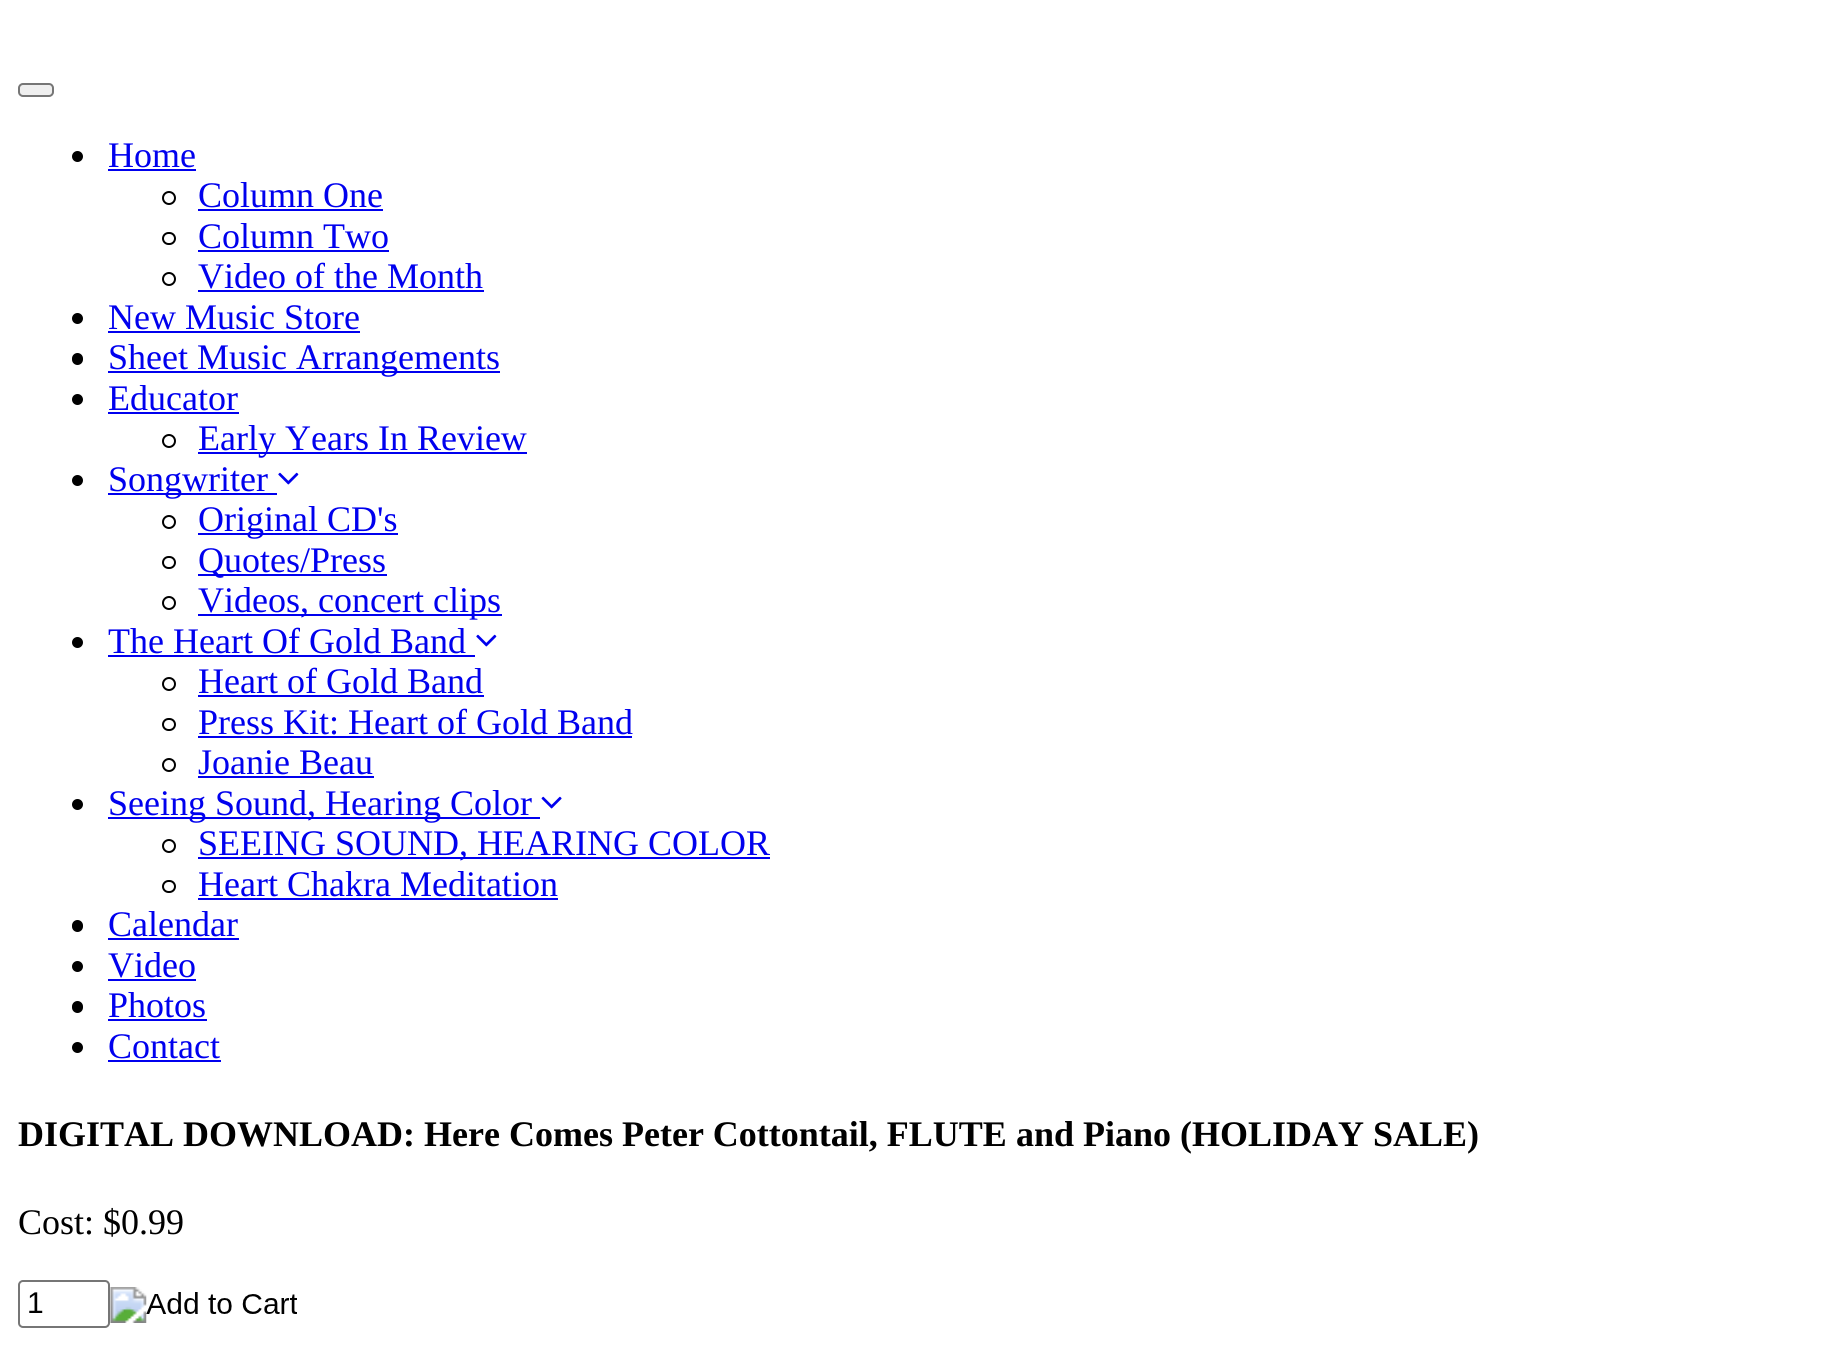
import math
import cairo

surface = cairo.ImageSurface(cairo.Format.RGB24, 1821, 1349)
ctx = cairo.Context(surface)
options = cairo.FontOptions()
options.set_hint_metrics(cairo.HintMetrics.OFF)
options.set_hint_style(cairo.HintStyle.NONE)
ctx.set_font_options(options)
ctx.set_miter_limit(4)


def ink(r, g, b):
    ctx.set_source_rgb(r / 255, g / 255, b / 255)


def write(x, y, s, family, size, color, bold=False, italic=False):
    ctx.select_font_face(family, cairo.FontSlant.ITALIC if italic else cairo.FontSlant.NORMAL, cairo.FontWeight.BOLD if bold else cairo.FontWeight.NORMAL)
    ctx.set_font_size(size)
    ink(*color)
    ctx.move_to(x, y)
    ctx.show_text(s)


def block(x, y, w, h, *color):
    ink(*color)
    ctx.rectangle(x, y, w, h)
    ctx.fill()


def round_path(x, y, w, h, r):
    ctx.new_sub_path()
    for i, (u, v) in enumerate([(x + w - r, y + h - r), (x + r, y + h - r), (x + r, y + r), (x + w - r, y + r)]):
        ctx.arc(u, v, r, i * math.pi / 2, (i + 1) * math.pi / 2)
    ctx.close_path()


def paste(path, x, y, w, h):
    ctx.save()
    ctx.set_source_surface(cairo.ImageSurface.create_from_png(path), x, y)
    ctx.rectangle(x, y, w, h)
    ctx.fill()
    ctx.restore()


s1 = dict(family="Liberation Serif", size=36, color=(0, 0, 238))
s2 = dict(family="Liberation Serif", size=36, color=(0, 0, 0), bold=True)
s3 = dict(family="Liberation Serif", size=36, color=(0, 0, 0))
s4 = dict(family="Liberation Sans", size=30, color=(0, 0, 0))

ink(255, 255, 255)
ctx.paint()
ink(239, 239, 239)
round_path(19, 84, 34, 12, 4)
ctx.fill_preserve()
ink(118, 118, 118)
ctx.stroke()
ink(0, 0, 0)
ctx.arc(77.5, 156.5, 5.5, 0, 2 * math.pi)
ctx.fill()
write(108, 167, "Home", **s1)
block(108, 169, 88, 2, 0, 0, 238)
ctx.new_path()
ctx.arc(169, 198, 6, 0, 2 * math.pi)
ink(0, 0, 0)
ctx.stroke()
write(198, 207, "Column One", **s1)
block(198, 209, 185, 2, 0, 0, 238)
round_path(163, 233, 12, 11, 5.5)
ink(0, 0, 0)
ctx.stroke()
write(198, 248, "Column Two", **s1)
block(198, 250, 191, 2, 0, 0, 238)
ctx.new_path()
ctx.arc(169, 279, 6, 0, 2 * math.pi)
ink(0, 0, 0)
ctx.stroke()
write(198, 288, "Video of the Month", **s1)
block(198, 290, 286, 2, 0, 0, 238)
ink(0, 0, 0)
ctx.new_path()
ctx.arc(77.5, 318.5, 5.5, 0, 2 * math.pi)
ctx.fill()
write(108, 329, "New Music Store", **s1)
block(108, 331, 252, 2, 0, 0, 238)
ink(0, 0, 0)
round_path(72, 353, 11, 12, 5.5)
ctx.fill()
block(108, 371, 392, 2, 0, 0, 238)
write(108, 369, "Sheet Music Arrangements", **s1)
ink(0, 0, 0)
ctx.new_path()
ctx.arc(77.5, 399.5, 5.5, 0, 2 * math.pi)
ctx.fill()
write(108, 410, "Educator", **s1)
block(108, 412, 131, 2, 0, 0, 238)
ctx.new_path()
ctx.arc(169, 441, 6, 0, 2 * math.pi)
ink(0, 0, 0)
ctx.stroke()
block(198, 452, 329, 2, 0, 0, 238)
write(198, 450, "Early Years In Review", **s1)
ink(0, 0, 0)
ctx.new_path()
ctx.arc(77.5, 480.5, 5.5, 0, 2 * math.pi)
ctx.fill()
block(108, 493, 169, 2, 0, 0, 238)
write(108, 491, "Songwriter", **s1)
paste("pic1.png", 278, 472, 21, 13)
ctx.arc(169, 522, 6, 0, 2 * math.pi)
ink(0, 0, 0)
ctx.stroke()
block(198, 533, 200, 2, 0, 0, 238)
write(198, 531, "Original CD's", **s1)
round_path(163, 557, 12, 11, 5.5)
ink(0, 0, 0)
ctx.stroke()
block(198, 574, 189, 2, 0, 0, 238)
write(198, 572, "Quotes/Press", **s1)
ctx.new_path()
ctx.arc(169, 603, 6, 0, 2 * math.pi)
ink(0, 0, 0)
ctx.stroke()
block(198, 614, 304, 2, 0, 0, 238)
write(198, 612, "Videos, concert clips", **s1)
ink(0, 0, 0)
ctx.new_path()
ctx.arc(77.5, 642.5, 5.5, 0, 2 * math.pi)
ctx.fill()
write(108, 653, "The Heart Of Gold Band", **s1)
block(108, 655, 367, 2, 0, 0, 238)
paste("pic1.png", 476, 634, 21, 13)
ctx.arc(169, 684, 6, 0, 2 * math.pi)
ink(0, 0, 0)
ctx.stroke()
write(198, 693, "Heart of Gold Band", **s1)
block(198, 695, 286, 2, 0, 0, 238)
round_path(163, 719, 12, 11, 5.5)
ink(0, 0, 0)
ctx.stroke()
write(198, 734, "Press Kit: Heart of Gold Band", **s1)
block(198, 736, 434, 2, 0, 0, 238)
ctx.new_path()
ctx.arc(169, 765, 6, 0, 2 * math.pi)
ink(0, 0, 0)
ctx.stroke()
write(198, 774, "Joanie Beau", **s1)
block(198, 776, 176, 2, 0, 0, 238)
ink(0, 0, 0)
ctx.new_path()
ctx.arc(77.5, 804.5, 5.5, 0, 2 * math.pi)
ctx.fill()
block(108, 817, 432, 2, 0, 0, 238)
write(108, 815, "Seeing Sound, Hearing Color", **s1)
paste("pic2.png", 541, 796, 21, 13)
ctx.arc(169, 846, 6, 0, 2 * math.pi)
ink(0, 0, 0)
ctx.stroke()
block(198, 857, 572, 2, 0, 0, 238)
write(198, 855, "SEEING SOUND, HEARING COLOR", **s1)
round_path(163, 881, 12, 11, 5.5)
ink(0, 0, 0)
ctx.stroke()
write(198, 896, "Heart Chakra Meditation", **s1)
block(198, 898, 360, 2, 0, 0, 238)
ink(0, 0, 0)
round_path(72, 920, 11, 12, 5.5)
ctx.fill()
write(108, 936, "Calendar", **s1)
block(108, 938, 131, 2, 0, 0, 238)
ink(0, 0, 0)
ctx.new_path()
ctx.arc(77.5, 966.5, 5.5, 0, 2 * math.pi)
ctx.fill()
write(108, 977, "Video", **s1)
block(108, 979, 88, 2, 0, 0, 238)
ink(0, 0, 0)
round_path(72, 1001, 11, 12, 5.5)
ctx.fill()
write(108, 1017, "Photos", **s1)
block(108, 1019, 99, 2, 0, 0, 238)
ink(0, 0, 0)
ctx.new_path()
ctx.arc(77.5, 1047.5, 5.5, 0, 2 * math.pi)
ctx.fill()
write(108, 1058, "Contact", **s1)
block(108, 1060, 113, 2, 0, 0, 238)
write(18, 1146, "DIGITAL DOWNLOAD: Here Comes Peter Cottontail, FLUTE and Piano (HOLIDAY SALE)", **s2)
write(18, 1234, "Cost: $0.99", **s3)
round_path(19, 1281, 90, 46, 4)
ink(118, 118, 118)
ctx.stroke()
write(27, 1313, "1", **s4)
paste("pic3.png", 110, 1287, 187, 36)
surface.write_to_png("screenshot.png")
